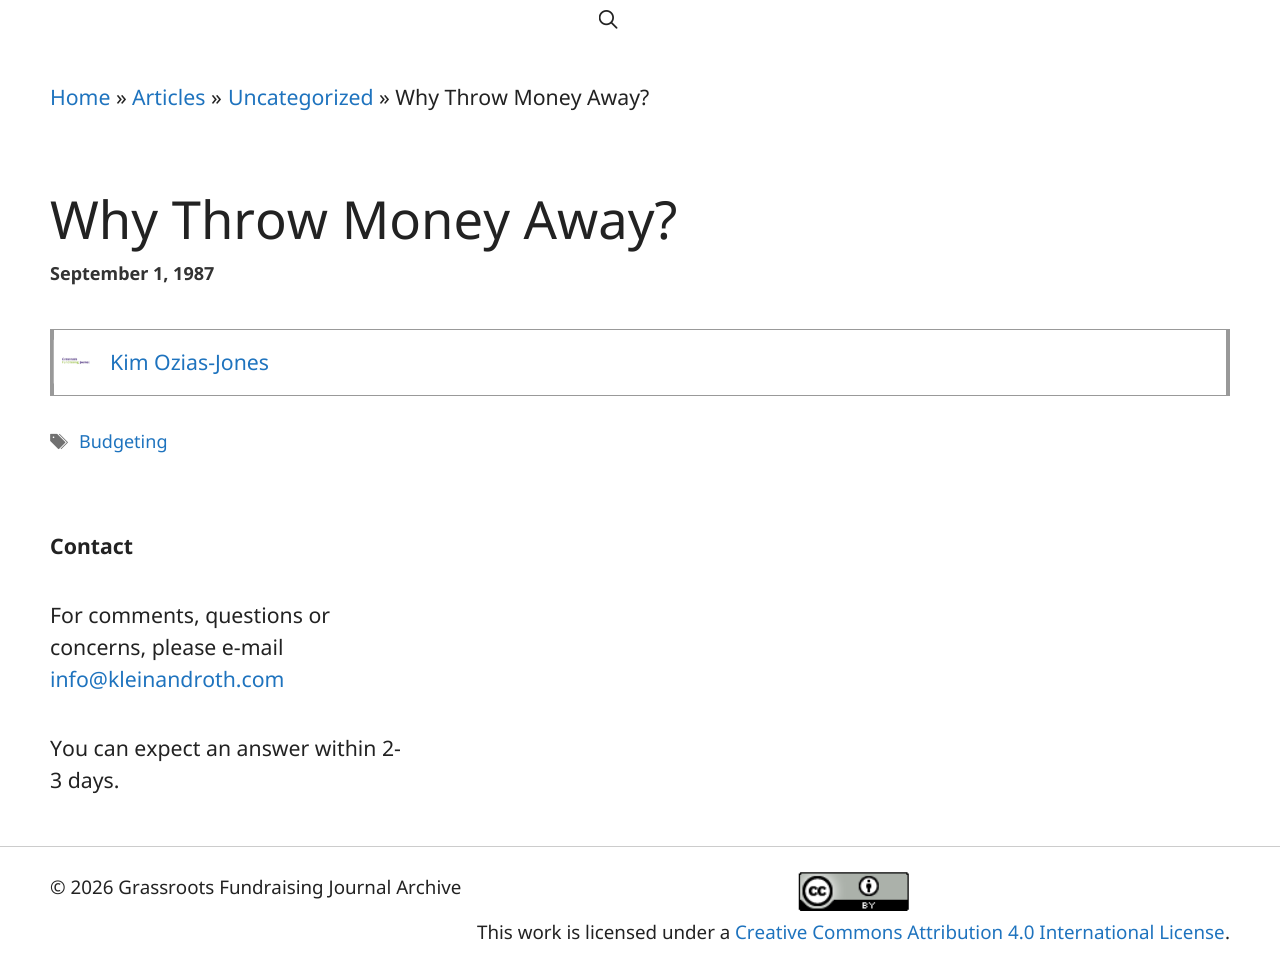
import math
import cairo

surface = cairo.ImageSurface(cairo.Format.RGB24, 1280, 971)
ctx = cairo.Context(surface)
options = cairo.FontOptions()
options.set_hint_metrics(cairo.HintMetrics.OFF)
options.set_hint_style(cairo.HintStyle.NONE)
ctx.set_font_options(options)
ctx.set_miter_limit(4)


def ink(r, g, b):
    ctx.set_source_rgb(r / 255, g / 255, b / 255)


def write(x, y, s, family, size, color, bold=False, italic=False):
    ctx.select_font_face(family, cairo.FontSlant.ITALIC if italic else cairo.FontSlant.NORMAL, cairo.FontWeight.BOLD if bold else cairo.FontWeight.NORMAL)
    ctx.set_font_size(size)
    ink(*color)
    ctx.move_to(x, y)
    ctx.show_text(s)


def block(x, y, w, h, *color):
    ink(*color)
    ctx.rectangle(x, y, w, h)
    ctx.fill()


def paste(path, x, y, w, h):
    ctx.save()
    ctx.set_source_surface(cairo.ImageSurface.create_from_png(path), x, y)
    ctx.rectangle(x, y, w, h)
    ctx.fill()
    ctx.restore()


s1 = dict(family="Noto Sans", size=21.25, color=(30, 115, 190))
s2 = dict(family="Noto Sans", size=21.25, color=(34, 34, 34))
s3 = dict(family="Noto Sans", size=52.5, color=(34, 34, 34))
s4 = dict(family="Noto Sans", size=18, color=(51, 51, 51), bold=True)
s5 = dict(family="Noto Sans", size=18, color=(30, 115, 190))
s6 = dict(family="Noto Sans", size=21.25, color=(34, 34, 34), bold=True)
s7 = dict(family="Noto Sans", size=18.75, color=(34, 34, 34))
s8 = dict(family="Noto Sans", size=18.75, color=(30, 115, 190))

ink(255, 255, 255)
ctx.paint()
paste("pic1.png", 599, 10, 19, 19)
write(50, 105, "Home", **s1)
write(116, 105, "»", **s2)
write(132, 105, "Articles", **s1)
write(211, 105, "»", **s2)
write(228, 105, "Uncategorized", **s1)
write(379, 105, "» Why Throw Money Away?", **s2)
write(50, 239, "Why Throw Money Away?", **s3)
write(50, 280, "September 1, 1987", **s4)
block(50, 329, 1180, 1, 153, 153, 153)
block(1226, 329, 4, 67, 153, 153, 153)
block(50, 395, 1180, 1, 153, 153, 153)
block(50, 329, 4, 67, 153, 153, 153)
paste("pic2.png", 53, 339, 37, 45)
write(110, 370, "Kim Ozias-Jones", **s1)
paste("pic3.png", 50, 433, 18, 17)
write(79, 448, "Budgeting", **s5)
write(50, 554, "Contact", **s6)
write(50, 623, "For comments, questions or", **s2)
write(50, 655, "concerns, please e-mail", **s2)
write(50, 687, "info@kleinandroth.com", **s1)
write(50, 756, "You can expect an answer within 2-", **s2)
write(50, 788, "3 days.", **s2)
block(0, 846, 1280, 1, 204, 204, 204)
write(50, 894, "© 2026 Grassroots Fundraising Journal Archive", **s7)
paste("pic4.png", 798, 872, 111, 39)
write(477, 939, "This work is licensed under a", **s7)
write(735, 939, "Creative Commons Attribution 4.0 International License", **s8)
write(1225, 939, ".", **s7)
surface.write_to_png("screenshot.png")
